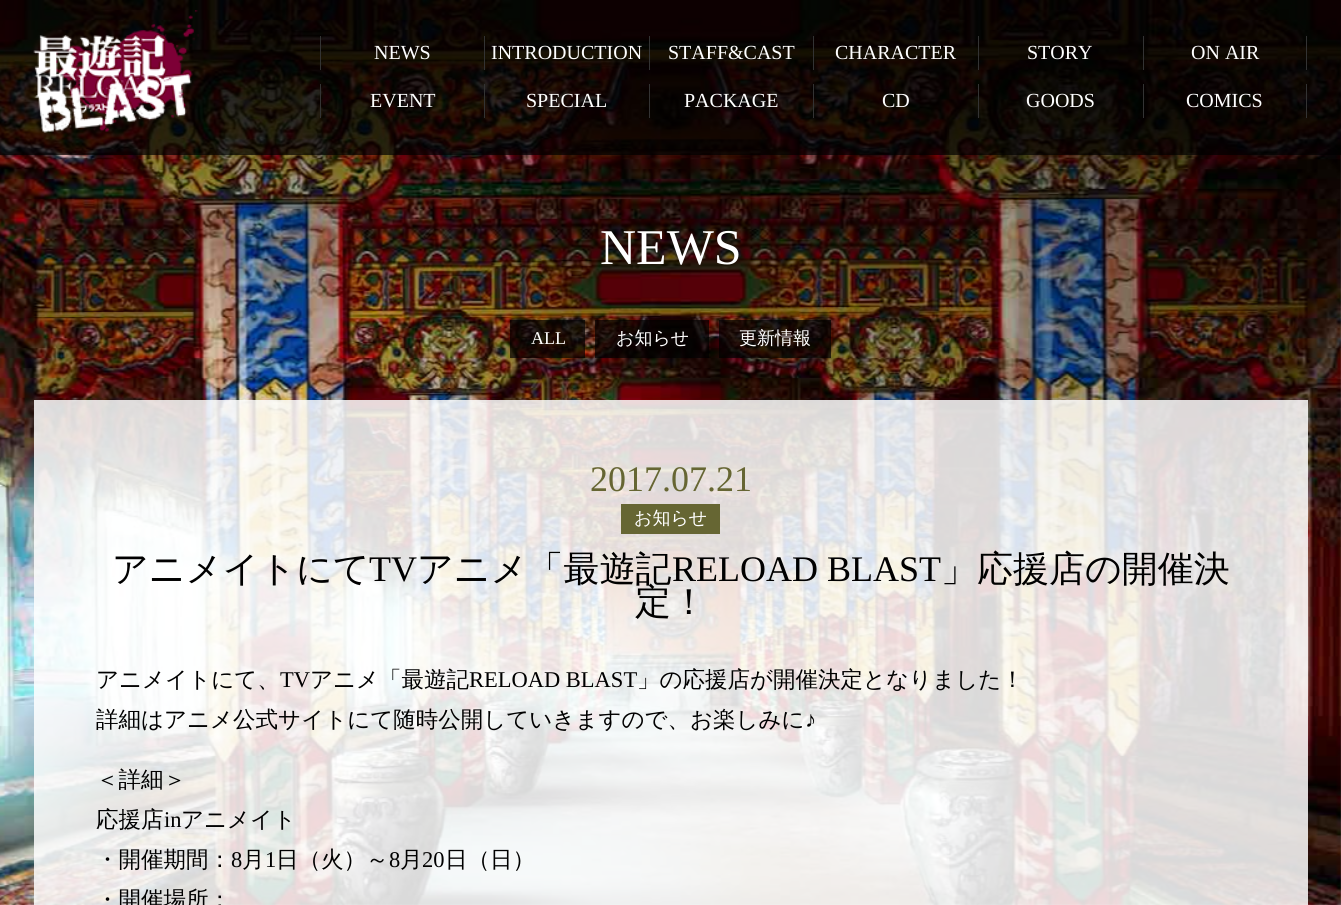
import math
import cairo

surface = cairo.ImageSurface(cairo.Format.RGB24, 1341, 905)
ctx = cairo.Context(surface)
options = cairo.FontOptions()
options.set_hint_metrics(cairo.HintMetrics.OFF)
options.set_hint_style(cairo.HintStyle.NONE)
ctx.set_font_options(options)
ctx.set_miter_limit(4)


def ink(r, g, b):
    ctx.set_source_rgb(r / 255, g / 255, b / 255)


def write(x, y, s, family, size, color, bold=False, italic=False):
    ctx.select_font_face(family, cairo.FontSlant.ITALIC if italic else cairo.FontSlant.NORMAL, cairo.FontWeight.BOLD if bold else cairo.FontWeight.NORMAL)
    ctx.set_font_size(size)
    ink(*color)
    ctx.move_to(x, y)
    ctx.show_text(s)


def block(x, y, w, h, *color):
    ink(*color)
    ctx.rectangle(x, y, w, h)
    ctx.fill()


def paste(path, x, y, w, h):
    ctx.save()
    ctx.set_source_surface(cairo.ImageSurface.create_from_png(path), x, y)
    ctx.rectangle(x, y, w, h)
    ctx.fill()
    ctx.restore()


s1 = dict(family="Liberation Serif", size=20, color=(255, 255, 255))
s2 = dict(family="Liberation Serif", size=50, color=(255, 255, 255))
s3 = dict(family="Liberation Serif", size=18, color=(255, 255, 255))
s4 = dict(family="WenQuanYi Zen Hei Medium", size=18, color=(255, 255, 255))
s5 = dict(family="Liberation Serif", size=36, color=(102, 102, 51))
s6 = dict(family="WenQuanYi Zen Hei Medium", size=36, color=(0, 0, 0))
s7 = dict(family="Liberation Serif", size=36, color=(0, 0, 0))
s8 = dict(family="WenQuanYi Zen Hei Medium", size=22.5, color=(0, 0, 0))
s9 = dict(family="Liberation Serif", size=22.5, color=(0, 0, 0))

ink(255, 255, 255)
ctx.paint()
paste("pic1.png", 0, 0, 1341, 905)
ctx.set_source_rgba(0, 0, 0, 0.7)
ctx.rectangle(0, 0, 1341, 155)
ctx.fill()
paste("pic2.png", 33, 10, 166, 123)
block(484, 36, 1, 34, 51, 51, 51)
block(320, 36, 1, 34, 51, 51, 51)
write(374, 59, "NEWS", **s1)
block(649, 36, 1, 34, 51, 51, 51)
write(491, 59, "INTRODUCTION", **s1)
block(813, 36, 1, 34, 51, 51, 51)
write(668, 59, "STAFF&CAST", **s1)
block(978, 36, 1, 34, 51, 51, 51)
write(835, 59, "CHARACTER", **s1)
block(1143, 36, 1, 34, 51, 51, 51)
write(1027, 59, "STORY", **s1)
block(1306, 36, 1, 34, 51, 51, 51)
write(1191, 59, "ON AIR", **s1)
block(484, 84, 1, 34, 51, 51, 51)
block(320, 84, 1, 34, 51, 51, 51)
write(370, 107, "EVENT", **s1)
block(649, 84, 1, 34, 51, 51, 51)
write(526, 107, "SPECIAL", **s1)
block(813, 84, 1, 34, 51, 51, 51)
write(684, 107, "PACKAGE", **s1)
block(978, 84, 1, 34, 51, 51, 51)
write(882, 107, "CD", **s1)
block(1143, 84, 1, 34, 51, 51, 51)
write(1026, 107, "GOODS", **s1)
block(1306, 84, 1, 34, 51, 51, 51)
write(1186, 107, "COMICS", **s1)
write(600, 264, "NEWS", **s2)
ctx.set_source_rgba(0, 0, 0, 0.7)
ctx.rectangle(510, 320, 75, 38)
ctx.fill()
write(531, 344, "ALL", **s3)
ctx.set_source_rgba(0, 0, 0, 0.7)
ctx.rectangle(595, 320, 114, 38)
ctx.fill()
write(616, 344, "お知らせ", **s4)
ctx.set_source_rgba(0, 0, 0, 0.7)
ctx.rectangle(719, 320, 112, 38)
ctx.fill()
write(739, 344, "更新情報", **s4)
ctx.set_source_rgba(1, 1, 1, 0.85)
ctx.rectangle(34, 400, 1274, 505)
ctx.fill()
write(590, 491, "2017.07.21", **s5)
block(621, 504, 99, 30, 102, 102, 51)
write(634, 524, "お知らせ", **s4)
write(112, 581, "アニメイトにて", **s6)
write(369, 581, "TV", **s7)
write(417, 581, "アニメ「最遊記", **s6)
write(672, 581, "RELOAD BLAST", **s7)
write(941, 581, "」応援店の開催決", **s6)
write(635, 614, "定！", **s6)
write(96, 687, "アニメイトにて、", **s8)
write(280, 687, "TV", **s9)
write(310, 687, "アニメ「最遊記", **s8)
write(469, 687, "RELOAD BLAST", **s9)
write(637, 687, "」の応援店が開催決定となりました！", **s8)
write(96, 727, "詳細はアニメ公式サイトにて随時公開していきますので、お楽しみに", **s8)
write(805, 727, "♪", **s9)
write(96, 787, "＜詳細＞", **s8)
write(96, 827, "応援店", **s8)
write(164, 827, "in", **s9)
write(181, 827, "アニメイト", **s8)
write(96, 867, "・開催期間：", **s8)
write(231, 867, "8", **s9)
write(242, 867, "月", **s8)
write(265, 867, "1", **s9)
write(276, 867, "日（火）～", **s8)
write(389, 867, "8", **s9)
write(400, 867, "月", **s8)
write(422, 867, "20", **s9)
write(445, 867, "日（日）", **s8)
write(96, 907, "・開催場所：", **s8)
surface.write_to_png("screenshot.png")
